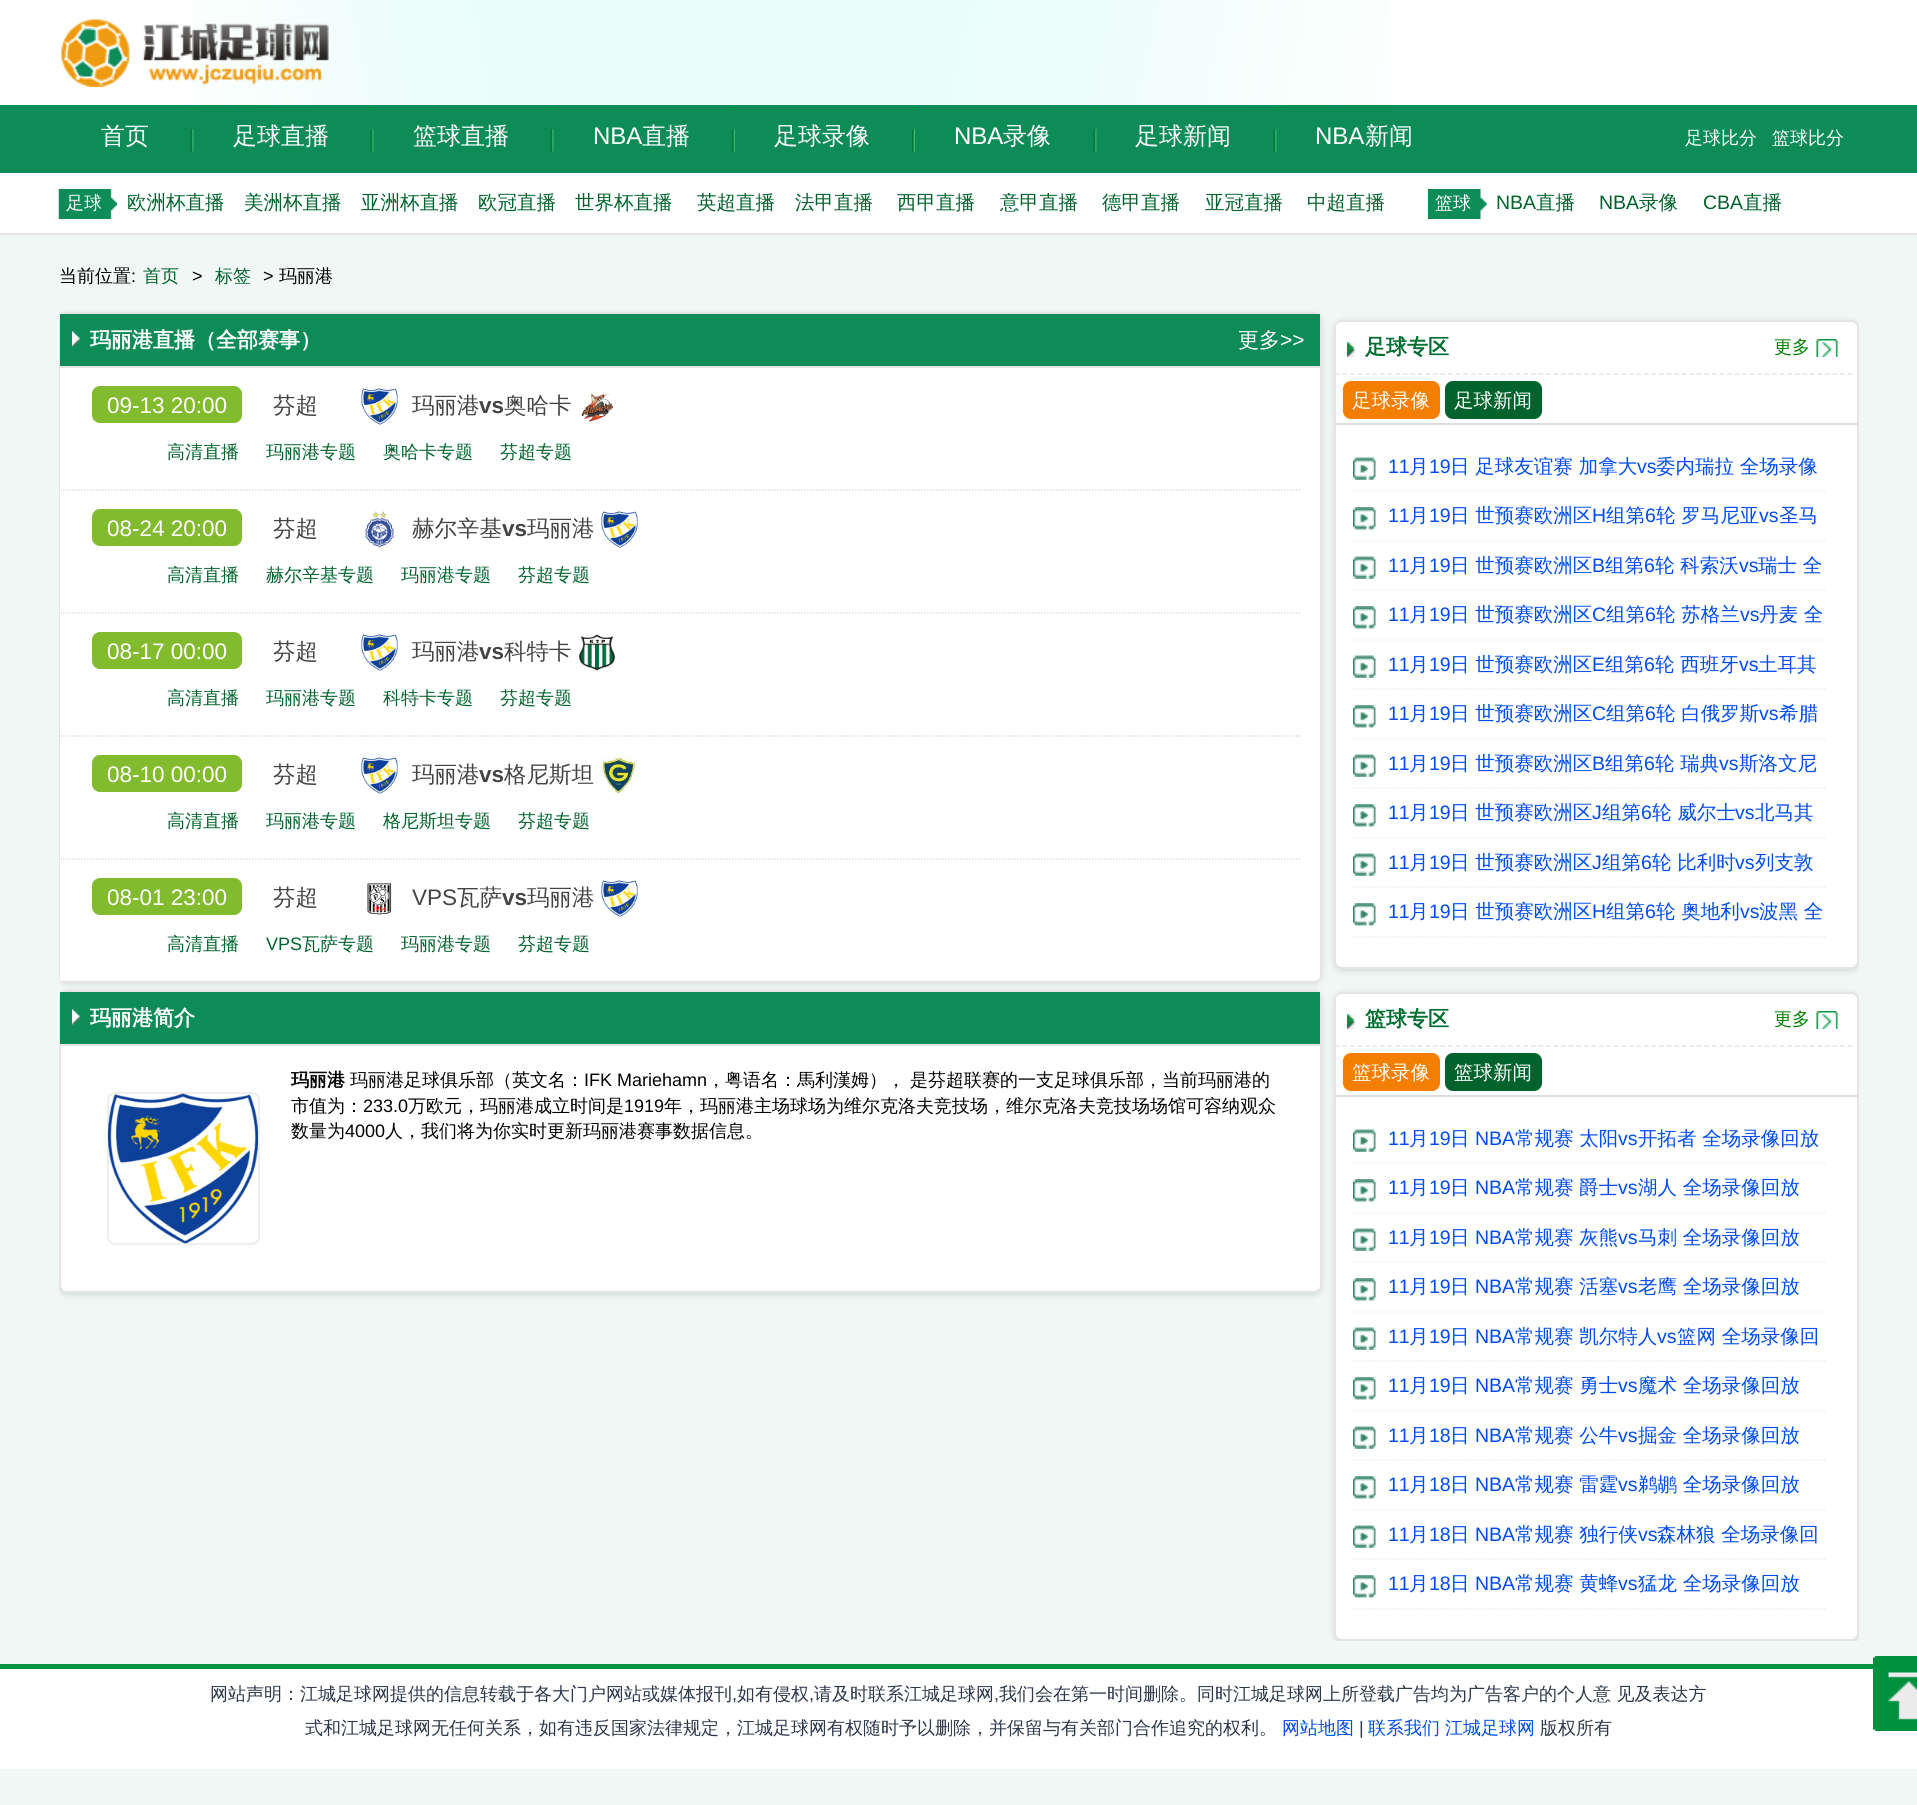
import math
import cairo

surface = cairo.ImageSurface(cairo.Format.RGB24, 1917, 1805)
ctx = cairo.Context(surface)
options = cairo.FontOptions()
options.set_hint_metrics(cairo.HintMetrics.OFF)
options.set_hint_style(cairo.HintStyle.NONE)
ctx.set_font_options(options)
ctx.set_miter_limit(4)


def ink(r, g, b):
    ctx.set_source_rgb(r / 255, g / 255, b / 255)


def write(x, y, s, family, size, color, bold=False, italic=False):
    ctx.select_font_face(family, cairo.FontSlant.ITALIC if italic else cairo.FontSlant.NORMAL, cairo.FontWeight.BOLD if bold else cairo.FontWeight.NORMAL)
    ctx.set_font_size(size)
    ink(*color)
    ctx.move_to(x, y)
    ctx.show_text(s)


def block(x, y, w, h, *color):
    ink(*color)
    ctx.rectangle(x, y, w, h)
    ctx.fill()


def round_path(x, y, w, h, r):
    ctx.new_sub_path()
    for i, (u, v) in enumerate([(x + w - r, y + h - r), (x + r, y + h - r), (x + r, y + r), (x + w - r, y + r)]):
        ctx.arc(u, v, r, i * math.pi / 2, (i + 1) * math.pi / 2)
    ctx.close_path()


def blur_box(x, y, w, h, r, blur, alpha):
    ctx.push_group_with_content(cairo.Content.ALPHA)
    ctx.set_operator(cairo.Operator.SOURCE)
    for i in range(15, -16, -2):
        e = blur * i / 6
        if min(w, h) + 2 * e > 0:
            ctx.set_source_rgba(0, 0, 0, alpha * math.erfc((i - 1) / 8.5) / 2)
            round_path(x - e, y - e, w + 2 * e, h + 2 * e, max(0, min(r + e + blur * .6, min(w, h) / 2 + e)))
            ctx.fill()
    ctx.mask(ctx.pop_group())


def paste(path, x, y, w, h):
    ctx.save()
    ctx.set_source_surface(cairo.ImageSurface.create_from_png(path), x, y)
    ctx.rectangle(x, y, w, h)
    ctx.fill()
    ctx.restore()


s1 = dict(family="WenQuanYi Zen Hei Medium", size=24, color=(255, 255, 255))
s2 = dict(family="Liberation Sans", size=24, color=(255, 255, 255))
s3 = dict(family="WenQuanYi Zen Hei Medium", size=18, color=(255, 255, 255))
s4 = dict(family="WenQuanYi Zen Hei Medium", size=19.5, color=(1, 99, 44))
s5 = dict(family="Liberation Sans", size=19.5, color=(1, 99, 44))
s6 = dict(family="WenQuanYi Zen Hei Medium", size=18, color=(0, 0, 0))
s7 = dict(family="Liberation Sans", size=18, color=(0, 0, 0))
s8 = dict(family="WenQuanYi Zen Hei Medium", size=18, color=(1, 99, 44))
s9 = dict(family="WenQuanYi Zen Hei", size=21, color=(255, 255, 255), bold=True)
s10 = dict(family="WenQuanYi Zen Hei Medium", size=21, color=(255, 255, 255))
s11 = dict(family="Liberation Sans", size=21, color=(255, 255, 255))
s12 = dict(family="Liberation Sans", size=22.5, color=(255, 255, 255))
s13 = dict(family="WenQuanYi Zen Hei Medium", size=22.5, color=(68, 68, 68))
s14 = dict(family="Liberation Sans", size=22.5, color=(68, 68, 68), bold=True)
s15 = dict(family="Liberation Sans", size=22.5, color=(68, 68, 68))
s16 = dict(family="Liberation Sans", size=18, color=(1, 99, 44))
s17 = dict(family="WenQuanYi Zen Hei", size=18, color=(0, 0, 0), bold=True)
s18 = dict(family="WenQuanYi Zen Hei", size=21, color=(0, 110, 48), bold=True)
s19 = dict(family="WenQuanYi Zen Hei Medium", size=18, color=(0, 128, 0))
s20 = dict(family="WenQuanYi Zen Hei Medium", size=19.5, color=(255, 255, 255))
s21 = dict(family="Liberation Sans", size=19.5, color=(0, 75, 243))
s22 = dict(family="WenQuanYi Zen Hei Medium", size=19.5, color=(0, 75, 243))
s23 = dict(family="WenQuanYi Zen Hei Medium", size=18, color=(45, 55, 75))
s24 = dict(family="Liberation Sans", size=18, color=(45, 55, 75))
s25 = dict(family="WenQuanYi Zen Hei Medium", size=18, color=(0, 75, 243))

ink(241, 247, 245)
ctx.paint()
block(0, 0, 1917, 105, 255, 255, 255)
paste("pic1.png", 193, 0, 1197, 105)
paste("pic2.png", 61, 19, 268, 68)
block(0, 105, 1917, 68, 14, 140, 88)
write(101, 144, "首页", **s1)
paste("pic3.png", 190, 105, 4, 47)
write(233, 144, "足球直播", **s1)
paste("pic3.png", 370, 105, 4, 47)
write(413, 144, "篮球直播", **s1)
paste("pic3.png", 550, 105, 4, 47)
write(593, 144, "NBA", **s2)
write(642, 144, "直播", **s1)
paste("pic4.png", 732, 105, 3, 47)
write(774, 144, "足球录像", **s1)
paste("pic5.png", 912, 105, 3, 47)
write(954, 144, "NBA", **s2)
write(1003, 144, "录像", **s1)
paste("pic3.png", 1093, 105, 4, 47)
write(1135, 144, "足球新闻", **s1)
paste("pic3.png", 1273, 105, 4, 47)
write(1315, 144, "NBA", **s2)
write(1365, 144, "新闻", **s1)
write(1685, 144, "足球比分", **s3)
write(1772, 144, "篮球比分", **s3)
block(0, 173, 1917, 60, 255, 255, 255)
block(0, 233, 1917, 2, 229, 229, 229)
paste("pic6.png", 58, 189, 59, 30)
write(127, 209, "欧洲杯直播", **s4)
write(244, 209, "美洲杯直播", **s4)
write(361, 209, "亚洲杯直播", **s4)
write(478, 209, "欧冠直播", **s4)
write(575, 209, "世界杯直播", **s4)
write(697, 209, "英超直播", **s4)
write(795, 209, "法甲直播", **s4)
write(897, 209, "西甲直播", **s4)
write(1000, 209, "意甲直播", **s4)
write(1102, 209, "德甲直播", **s4)
write(1205, 209, "亚冠直播", **s4)
write(1307, 209, "中超直播", **s4)
paste("pic7.png", 1428, 189, 59, 30)
write(1536, 209, "直播", **s4)
write(1599, 209, "NBA", **s5)
write(1639, 209, "录像", **s4)
write(1743, 209, "直播", **s4)
write(66, 209, "足球", **s3)
write(1435, 209, "篮球", **s3)
write(1496, 209, "NBA", **s5)
write(1703, 209, "CBA", **s5)
write(59, 282, "当前位置", **s6)
write(131, 282, ":", **s7)
write(143, 282, "首页", **s8)
write(192, 282, ">", **s7)
write(215, 282, "标签", **s8)
write(263, 282, ">", **s7)
write(279, 282, "玛丽港", **s6)
ctx.save()
ctx.rectangle(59, 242, 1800, 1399)
ctx.clip()
ink(88, 100, 117)
blur_box(59, 314, 1263, 670, 8, 3, 0.2)
ctx.restore()
ink(255, 255, 255)
round_path(60, 313, 1261, 669, 7)
ctx.fill_preserve()
ink(229, 229, 229)
ctx.stroke()
block(60, 366, 1260, 2, 229, 229, 229)
block(60, 314, 1260, 52, 14, 140, 88)
paste("pic8.png", 72, 331, 8, 16)
write(90, 347, "玛丽港直播（全部赛事）", **s9)
write(1238, 347, "更多", **s10)
write(1280, 347, ">>", **s11)
block(60, 368, 1, 492, 255, 255, 255)
ctx.new_path()
ctx.move_to(60, 490)
ctx.line_to(1302, 490)
ink(225, 225, 225)
ctx.set_line_width(1.5)
ctx.set_dash([1.5, 1.5])
ctx.stroke()
ink(130, 188, 46)
round_path(92, 386, 150, 37, 8)
ctx.fill()
write(107, 413, "09-13 20:00", **s12)
write(273, 413, "芬超", **s13)
paste("pic9.png", 361, 388, 37, 37)
write(412, 413, "玛丽港", **s13)
write(479, 413, "vs", **s14)
write(504, 413, "奥哈卡", **s13)
paste("pic10.png", 581, 391, 33, 31)
write(167, 458, "高清直播", **s8)
write(266, 458, "玛丽港专题", **s8)
write(383, 458, "奥哈卡专题", **s8)
write(500, 458, "芬超专题", **s8)
ctx.new_path()
ctx.move_to(60, 613)
ctx.line_to(1302, 613)
ink(225, 225, 225)
ctx.stroke()
ink(130, 188, 46)
round_path(92, 509, 150, 37, 8)
ctx.fill()
write(107, 536, "08-24 20:00", **s12)
write(273, 536, "芬超", **s13)
paste("pic11.png", 364, 511, 31, 37)
write(412, 536, "赫尔辛基", **s13)
write(502, 536, "vs", **s14)
write(527, 536, "玛丽港", **s13)
paste("pic9.png", 601, 511, 37, 37)
write(167, 581, "高清直播", **s8)
write(266, 581, "赫尔辛基专题", **s8)
write(401, 581, "玛丽港专题", **s8)
write(518, 581, "芬超专题", **s8)
ctx.new_path()
ctx.move_to(60, 736)
ctx.line_to(1302, 736)
ink(225, 225, 225)
ctx.stroke()
ink(130, 188, 46)
round_path(92, 632, 150, 37, 8)
ctx.fill()
write(107, 659, "08-17 00:00", **s12)
write(273, 659, "芬超", **s13)
paste("pic9.png", 361, 634, 37, 37)
write(412, 659, "玛丽港", **s13)
write(479, 659, "vs", **s14)
write(504, 659, "科特卡", **s13)
paste("pic12.png", 579, 634, 36, 37)
write(167, 704, "高清直播", **s8)
write(266, 704, "玛丽港专题", **s8)
write(383, 704, "科特卡专题", **s8)
write(500, 704, "芬超专题", **s8)
ctx.new_path()
ctx.move_to(60, 859)
ctx.line_to(1302, 859)
ink(225, 225, 225)
ctx.stroke()
ink(130, 188, 46)
round_path(92, 755, 150, 37, 8)
ctx.fill()
write(107, 782, "08-10 00:00", **s12)
write(273, 782, "芬超", **s13)
paste("pic9.png", 361, 757, 37, 37)
write(412, 782, "玛丽港", **s13)
write(479, 782, "vs", **s14)
write(504, 782, "格尼斯坦", **s13)
paste("pic13.png", 601, 757, 36, 37)
write(167, 827, "高清直播", **s8)
write(266, 827, "玛丽港专题", **s8)
write(383, 827, "格尼斯坦专题", **s8)
write(518, 827, "芬超专题", **s8)
block(60, 860, 6, 121, 255, 255, 255)
ink(130, 188, 46)
round_path(92, 878, 150, 37, 8)
ctx.fill()
write(107, 905, "08-01 23:00", **s12)
write(273, 905, "芬超", **s13)
paste("pic14.png", 367, 883, 25, 32)
write(412, 905, "VPS", **s15)
write(457, 905, "瓦萨", **s13)
write(502, 905, "vs", **s14)
write(527, 905, "玛丽港", **s13)
paste("pic9.png", 601, 880, 37, 37)
write(167, 950, "高清直播", **s8)
write(266, 950, "VPS", **s16)
write(302, 950, "瓦萨专题", **s8)
write(401, 950, "玛丽港专题", **s8)
write(518, 950, "芬超专题", **s8)
ctx.save()
ctx.rectangle(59, 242, 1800, 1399)
ctx.clip()
ink(88, 100, 117)
blur_box(59, 992, 1263, 303, 8, 3, 0.2)
ctx.restore()
ink(255, 255, 255)
round_path(60, 991, 1261, 301, 7)
ctx.fill_preserve()
ink(229, 229, 229)
ctx.set_line_width(2)
ctx.set_dash([])
ctx.stroke()
block(60, 1044, 1260, 2, 229, 229, 229)
block(60, 992, 1260, 52, 14, 140, 88)
paste("pic8.png", 72, 1009, 8, 16)
write(90, 1025, "玛丽港简介", **s9)
round_path(108, 1093, 151, 151, 7)
ink(238, 238, 238)
ctx.stroke()
paste("pic15.png", 108, 1093, 150, 151)
write(291, 1086, "玛丽港", **s17)
write(350, 1086, "玛丽港足球俱乐部（英文名：", **s6)
write(584, 1086, "IFK Mariehamn", **s7)
write(707, 1086, "，粤语名：馬利漢姆），", **s6)
write(910, 1086, "是芬超联赛的一支足球俱乐部，当前玛丽港的", **s6)
write(291, 1112, "市值为：", **s6)
write(363, 1112, "233.0", **s7)
write(408, 1112, "万欧元，玛丽港成立时间是", **s6)
write(624, 1112, "1919", **s7)
write(664, 1112, "年，玛丽港主场球场为维尔克洛夫竞技场，维尔克洛夫竞技场场馆可容纳观众", **s6)
write(291, 1137, "数量为", **s6)
write(345, 1137, "4000", **s7)
write(385, 1137, "人，我们将为你实时更新玛丽港赛事数据信息。", **s6)
ctx.save()
ctx.rectangle(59, 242, 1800, 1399)
ctx.clip()
ink(88, 100, 117)
blur_box(1334, 321, 525, 650, 8, 3, 0.2)
ctx.restore()
ink(255, 255, 255)
round_path(1335, 321, 523, 647, 7)
ctx.fill_preserve()
ink(229, 229, 229)
ctx.stroke()
ctx.new_path()
ctx.move_to(1335, 374)
ctx.line_to(1852.5, 374)
ctx.set_line_width(1.5)
ctx.set_dash([4.5, 3.04])
ctx.stroke()
paste("pic16.png", 1347, 342, 8, 15)
write(1365, 354, "足球专区", **s18)
write(1774, 353, "更多", **s19)
paste("pic17.png", 1816, 339, 22, 18)
block(1335, 423, 522, 2, 221, 221, 221)
ink(243, 126, 0)
round_path(1343, 381, 97, 38, 8)
ctx.fill()
write(1352, 407, "足球录像", **s20)
ink(1, 99, 44)
round_path(1445, 381, 97, 38, 8)
ctx.fill()
write(1454, 407, "足球新闻", **s20)
paste("pic18.png", 1353, 457, 23, 23)
ctx.new_path()
ctx.move_to(1353, 491)
ctx.line_to(1825.5, 491)
ink(240, 240, 240)
ctx.set_dash([1.5, 1.5])
ctx.stroke()
write(1388, 473, "11", **s21)
write(1409, 473, "月", **s22)
write(1429, 473, "19", **s21)
write(1450, 473, "日 足球友谊赛 加拿大", **s22)
write(1637, 473, "vs", **s21)
write(1656, 473, "委内瑞拉 全场录像", **s22)
paste("pic19.png", 1353, 507, 23, 23)
ctx.new_path()
ctx.move_to(1353, 541)
ctx.line_to(1825.5, 541)
ink(240, 240, 240)
ctx.stroke()
write(1388, 522, "11", **s21)
write(1409, 522, "月", **s22)
write(1429, 522, "19", **s21)
write(1450, 522, "日 世预赛欧洲区", **s22)
write(1592, 522, "H", **s21)
write(1606, 522, "组第", **s22)
write(1645, 522, "6", **s21)
write(1656, 522, "轮 罗马尼亚", **s22)
write(1759, 522, "vs", **s21)
write(1779, 522, "圣马", **s22)
paste("pic18.png", 1353, 556, 23, 23)
ctx.new_path()
ctx.move_to(1353, 590)
ctx.line_to(1825.5, 590)
ink(240, 240, 240)
ctx.stroke()
write(1388, 572, "11", **s21)
write(1409, 572, "月", **s22)
write(1429, 572, "19", **s21)
write(1450, 572, "日 世预赛欧洲区", **s22)
write(1592, 572, "B", **s21)
write(1605, 572, "组第", **s22)
write(1644, 572, "6", **s21)
write(1655, 572, "轮 科索沃", **s22)
write(1739, 572, "vs", **s21)
write(1758, 572, "瑞士 全", **s22)
paste("pic19.png", 1353, 606, 23, 23)
ctx.new_path()
ctx.move_to(1353, 640)
ctx.line_to(1825.5, 640)
ink(240, 240, 240)
ctx.stroke()
write(1388, 621, "11", **s21)
write(1409, 621, "月", **s22)
write(1429, 621, "19", **s21)
write(1450, 621, "日 世预赛欧洲区", **s22)
write(1592, 621, "C", **s21)
write(1606, 621, "组第", **s22)
write(1645, 621, "6", **s21)
write(1656, 621, "轮 苏格兰", **s22)
write(1740, 621, "vs", **s21)
write(1759, 621, "丹麦 全", **s22)
paste("pic18.png", 1353, 655, 23, 23)
ctx.new_path()
ctx.move_to(1353, 689)
ctx.line_to(1825.5, 689)
ink(240, 240, 240)
ctx.stroke()
write(1388, 671, "11", **s21)
write(1409, 671, "月", **s22)
write(1429, 671, "19", **s21)
write(1450, 671, "日 世预赛欧洲区", **s22)
write(1592, 671, "E", **s21)
write(1605, 671, "组第", **s22)
write(1644, 671, "6", **s21)
write(1655, 671, "轮 西班牙", **s22)
write(1739, 671, "vs", **s21)
write(1758, 671, "土耳其", **s22)
paste("pic19.png", 1353, 705, 23, 23)
ctx.new_path()
ctx.move_to(1353, 739)
ctx.line_to(1825.5, 739)
ink(240, 240, 240)
ctx.stroke()
write(1388, 720, "11", **s21)
write(1409, 720, "月", **s22)
write(1429, 720, "19", **s21)
write(1450, 720, "日 世预赛欧洲区", **s22)
write(1592, 720, "C", **s21)
write(1606, 720, "组第", **s22)
write(1645, 720, "6", **s21)
write(1656, 720, "轮 白俄罗斯", **s22)
write(1759, 720, "vs", **s21)
write(1779, 720, "希腊", **s22)
paste("pic18.png", 1353, 754, 23, 23)
ctx.new_path()
ctx.move_to(1353, 788)
ctx.line_to(1825.5, 788)
ink(240, 240, 240)
ctx.stroke()
write(1388, 770, "11", **s21)
write(1409, 770, "月", **s22)
write(1429, 770, "19", **s21)
write(1450, 770, "日 世预赛欧洲区", **s22)
write(1592, 770, "B", **s21)
write(1605, 770, "组第", **s22)
write(1644, 770, "6", **s21)
write(1655, 770, "轮 瑞典", **s22)
write(1719, 770, "vs", **s21)
write(1739, 770, "斯洛文尼", **s22)
paste("pic19.png", 1353, 804, 23, 23)
ctx.new_path()
ctx.move_to(1353, 838)
ctx.line_to(1825.5, 838)
ink(240, 240, 240)
ctx.stroke()
write(1388, 819, "11", **s21)
write(1409, 819, "月", **s22)
write(1429, 819, "19", **s21)
write(1450, 819, "日 世预赛欧洲区", **s22)
write(1592, 819, "J", **s21)
write(1602, 819, "组第", **s22)
write(1641, 819, "6", **s21)
write(1652, 819, "轮 威尔士", **s22)
write(1735, 819, "vs", **s21)
write(1755, 819, "北马其", **s22)
paste("pic18.png", 1353, 853, 23, 23)
ctx.new_path()
ctx.move_to(1353, 887)
ctx.line_to(1825.5, 887)
ink(240, 240, 240)
ctx.stroke()
write(1388, 869, "11", **s21)
write(1409, 869, "月", **s22)
write(1429, 869, "19", **s21)
write(1450, 869, "日 世预赛欧洲区", **s22)
write(1592, 869, "J", **s21)
write(1602, 869, "组第", **s22)
write(1641, 869, "6", **s21)
write(1652, 869, "轮 比利时", **s22)
write(1735, 869, "vs", **s21)
write(1755, 869, "列支敦", **s22)
paste("pic19.png", 1353, 903, 23, 23)
ctx.new_path()
ctx.move_to(1353, 937)
ctx.line_to(1825.5, 937)
ink(240, 240, 240)
ctx.stroke()
write(1388, 918, "11", **s21)
write(1409, 918, "月", **s22)
write(1429, 918, "19", **s21)
write(1450, 918, "日 世预赛欧洲区", **s22)
write(1592, 918, "H", **s21)
write(1606, 918, "组第", **s22)
write(1645, 918, "6", **s21)
write(1656, 918, "轮 奥地利", **s22)
write(1740, 918, "vs", **s21)
write(1759, 918, "波黑 全", **s22)
ctx.save()
ctx.rectangle(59, 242, 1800, 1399)
ctx.clip()
ink(88, 100, 117)
blur_box(1334, 993, 525, 650, 8, 3, 0.2)
ctx.restore()
ink(255, 255, 255)
round_path(1335, 993, 523, 647, 7)
ctx.fill_preserve()
ink(229, 229, 229)
ctx.set_line_width(2)
ctx.set_dash([])
ctx.stroke()
ctx.new_path()
ctx.move_to(1335, 1046)
ctx.line_to(1852.5, 1046)
ctx.set_line_width(1.5)
ctx.set_dash([4.5, 3.04])
ctx.stroke()
paste("pic16.png", 1347, 1014, 8, 15)
write(1365, 1026, "篮球专区", **s18)
write(1774, 1025, "更多", **s19)
paste("pic17.png", 1816, 1011, 22, 18)
block(1335, 1095, 522, 2, 221, 221, 221)
ink(243, 126, 0)
round_path(1343, 1053, 97, 38, 8)
ctx.fill()
write(1352, 1079, "篮球录像", **s20)
ink(1, 99, 44)
round_path(1445, 1053, 97, 38, 8)
ctx.fill()
write(1454, 1079, "篮球新闻", **s20)
paste("pic18.png", 1353, 1129, 23, 23)
ctx.new_path()
ctx.move_to(1353, 1163)
ctx.line_to(1825.5, 1163)
ink(240, 240, 240)
ctx.set_dash([1.5, 1.5])
ctx.stroke()
write(1388, 1145, "11", **s21)
write(1409, 1145, "月", **s22)
write(1429, 1145, "19", **s21)
write(1450, 1145, "日", **s22)
write(1475, 1145, "NBA", **s21)
write(1515, 1145, "常规赛 太阳", **s22)
write(1618, 1145, "vs", **s21)
write(1638, 1145, "开拓者 全场录像回放", **s22)
paste("pic19.png", 1353, 1179, 23, 23)
ctx.new_path()
ctx.move_to(1353, 1213)
ctx.line_to(1825.5, 1213)
ink(240, 240, 240)
ctx.stroke()
write(1388, 1194, "11", **s21)
write(1409, 1194, "月", **s22)
write(1429, 1194, "19", **s21)
write(1450, 1194, "日", **s22)
write(1475, 1194, "NBA", **s21)
write(1515, 1194, "常规赛 爵士", **s22)
write(1618, 1194, "vs", **s21)
write(1638, 1194, "湖人 全场录像回放", **s22)
paste("pic18.png", 1353, 1228, 23, 23)
ctx.new_path()
ctx.move_to(1353, 1262)
ctx.line_to(1825.5, 1262)
ink(240, 240, 240)
ctx.stroke()
write(1388, 1244, "11", **s21)
write(1409, 1244, "月", **s22)
write(1429, 1244, "19", **s21)
write(1450, 1244, "日", **s22)
write(1475, 1244, "NBA", **s21)
write(1515, 1244, "常规赛 灰熊", **s22)
write(1618, 1244, "vs", **s21)
write(1638, 1244, "马刺 全场录像回放", **s22)
paste("pic19.png", 1353, 1278, 23, 23)
ctx.new_path()
ctx.move_to(1353, 1312)
ctx.line_to(1825.5, 1312)
ink(240, 240, 240)
ctx.stroke()
write(1388, 1293, "11", **s21)
write(1409, 1293, "月", **s22)
write(1429, 1293, "19", **s21)
write(1450, 1293, "日", **s22)
write(1475, 1293, "NBA", **s21)
write(1515, 1293, "常规赛 活塞", **s22)
write(1618, 1293, "vs", **s21)
write(1638, 1293, "老鹰 全场录像回放", **s22)
paste("pic18.png", 1353, 1327, 23, 23)
ctx.new_path()
ctx.move_to(1353, 1361)
ctx.line_to(1825.5, 1361)
ink(240, 240, 240)
ctx.stroke()
write(1388, 1343, "11", **s21)
write(1409, 1343, "月", **s22)
write(1429, 1343, "19", **s21)
write(1450, 1343, "日", **s22)
write(1475, 1343, "NBA", **s21)
write(1515, 1343, "常规赛 凯尔特人", **s22)
write(1657, 1343, "vs", **s21)
write(1677, 1343, "篮网 全场录像回", **s22)
paste("pic19.png", 1353, 1377, 23, 23)
ctx.new_path()
ctx.move_to(1353, 1411)
ctx.line_to(1825.5, 1411)
ink(240, 240, 240)
ctx.stroke()
write(1388, 1392, "11", **s21)
write(1409, 1392, "月", **s22)
write(1429, 1392, "19", **s21)
write(1450, 1392, "日", **s22)
write(1475, 1392, "NBA", **s21)
write(1515, 1392, "常规赛 勇士", **s22)
write(1618, 1392, "vs", **s21)
write(1638, 1392, "魔术 全场录像回放", **s22)
paste("pic18.png", 1353, 1426, 23, 23)
ctx.new_path()
ctx.move_to(1353, 1460)
ctx.line_to(1825.5, 1460)
ink(240, 240, 240)
ctx.stroke()
write(1388, 1442, "11", **s21)
write(1409, 1442, "月", **s22)
write(1429, 1442, "18", **s21)
write(1450, 1442, "日", **s22)
write(1475, 1442, "NBA", **s21)
write(1515, 1442, "常规赛 公牛", **s22)
write(1618, 1442, "vs", **s21)
write(1638, 1442, "掘金 全场录像回放", **s22)
paste("pic19.png", 1353, 1476, 23, 23)
ctx.new_path()
ctx.move_to(1353, 1510)
ctx.line_to(1825.5, 1510)
ink(240, 240, 240)
ctx.stroke()
write(1388, 1491, "11", **s21)
write(1409, 1491, "月", **s22)
write(1429, 1491, "18", **s21)
write(1450, 1491, "日", **s22)
write(1475, 1491, "NBA", **s21)
write(1515, 1491, "常规赛 雷霆", **s22)
write(1618, 1491, "vs", **s21)
write(1638, 1491, "鹈鹕 全场录像回放", **s22)
paste("pic18.png", 1353, 1525, 23, 23)
ctx.new_path()
ctx.move_to(1353, 1559)
ctx.line_to(1825.5, 1559)
ink(240, 240, 240)
ctx.stroke()
write(1388, 1541, "11", **s21)
write(1409, 1541, "月", **s22)
write(1429, 1541, "18", **s21)
write(1450, 1541, "日", **s22)
write(1475, 1541, "NBA", **s21)
write(1515, 1541, "常规赛 独行侠", **s22)
write(1638, 1541, "vs", **s21)
write(1657, 1541, "森林狼 全场录像回", **s22)
paste("pic19.png", 1353, 1575, 23, 23)
ctx.new_path()
ctx.move_to(1353, 1609)
ctx.line_to(1825.5, 1609)
ink(240, 240, 240)
ctx.stroke()
write(1388, 1590, "11", **s21)
write(1409, 1590, "月", **s22)
write(1429, 1590, "18", **s21)
write(1450, 1590, "日", **s22)
write(1475, 1590, "NBA", **s21)
write(1515, 1590, "常规赛 黄蜂", **s22)
write(1618, 1590, "vs", **s21)
write(1638, 1590, "猛龙 全场录像回放", **s22)
block(0, 1669, 1917, 100, 255, 255, 255)
block(0, 1664, 1873, 5, 0, 146, 63)
write(210, 1700, "网站声明：江城足球网提供的信息转载于各大门户网站或媒体报刊", **s23)
write(732, 1700, ",", **s24)
write(737, 1700, "如有侵权", **s23)
write(809, 1700, ",", **s24)
write(814, 1700, "请及时联系江城足球网", **s23)
write(994, 1700, ",", **s24)
write(999, 1700, "我们会在第一时间删除。同时江城足球网上所登载广告均为广告客户的个人意 见及表达方", **s23)
write(305, 1734, "式和江城足球网无任何关系，如有违反国家法律规定，江城足球网有权随时予以删除，并保留与有关部门合作追究的权利。", **s23)
write(1282, 1734, "网站地图", **s25)
write(1359, 1734, "|", **s24)
write(1368, 1734, "联系我们", **s25)
write(1445, 1734, "江城足球网", **s25)
write(1540, 1734, "版权所有", **s23)
paste("pic20.png", 1873, 1656, 44, 75)
surface.write_to_png("screenshot.png")
